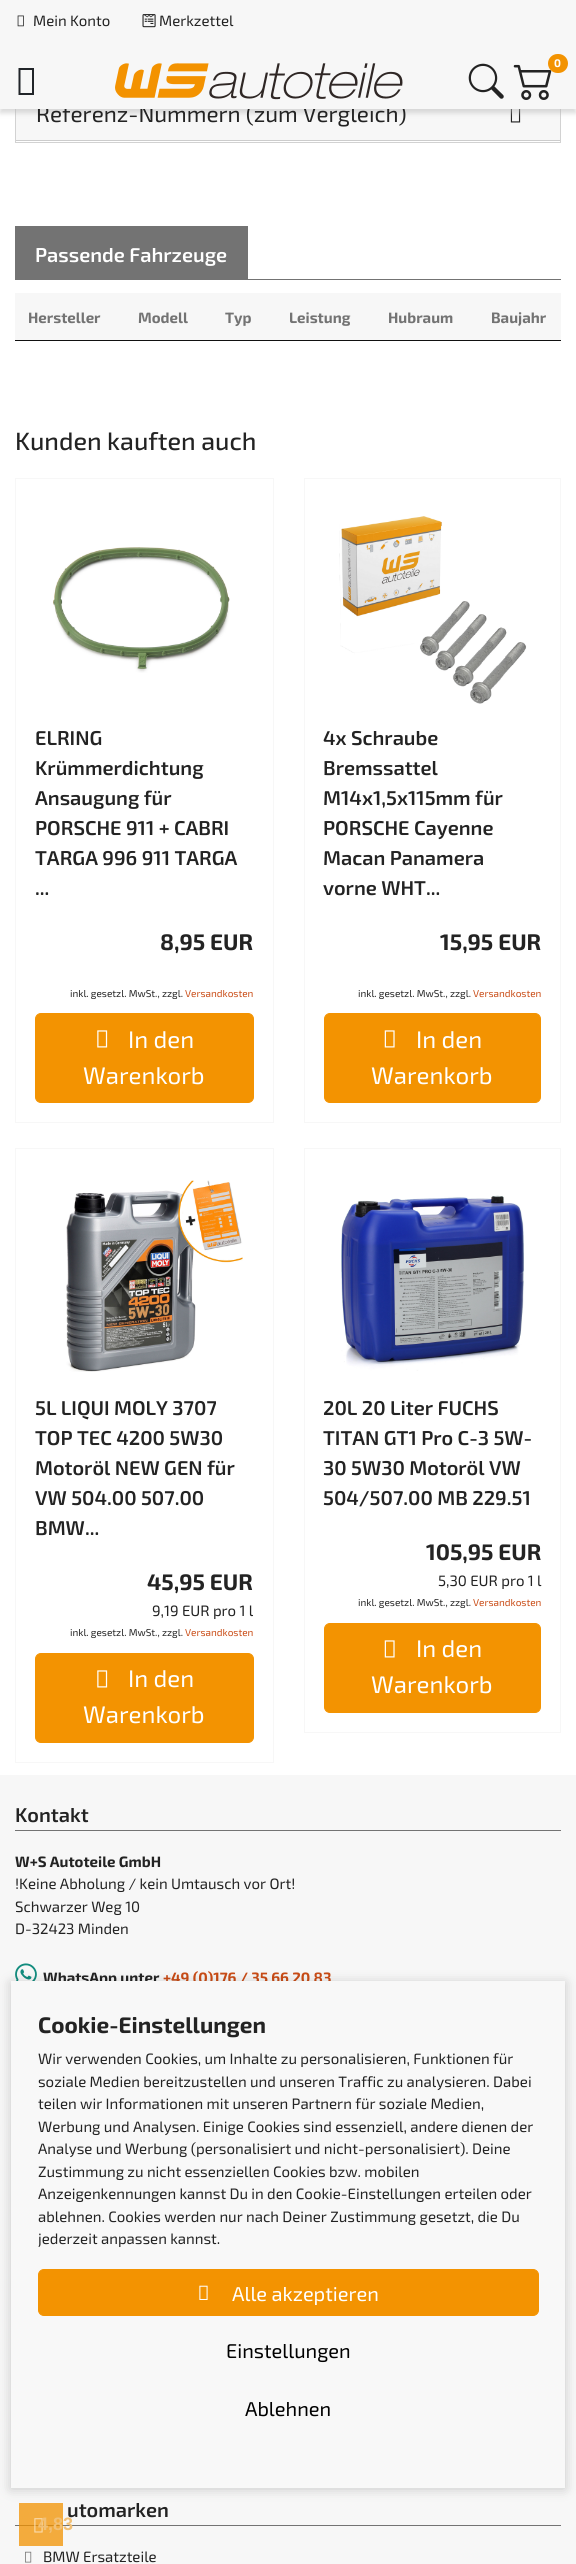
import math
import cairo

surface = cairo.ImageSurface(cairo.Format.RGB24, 576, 2564)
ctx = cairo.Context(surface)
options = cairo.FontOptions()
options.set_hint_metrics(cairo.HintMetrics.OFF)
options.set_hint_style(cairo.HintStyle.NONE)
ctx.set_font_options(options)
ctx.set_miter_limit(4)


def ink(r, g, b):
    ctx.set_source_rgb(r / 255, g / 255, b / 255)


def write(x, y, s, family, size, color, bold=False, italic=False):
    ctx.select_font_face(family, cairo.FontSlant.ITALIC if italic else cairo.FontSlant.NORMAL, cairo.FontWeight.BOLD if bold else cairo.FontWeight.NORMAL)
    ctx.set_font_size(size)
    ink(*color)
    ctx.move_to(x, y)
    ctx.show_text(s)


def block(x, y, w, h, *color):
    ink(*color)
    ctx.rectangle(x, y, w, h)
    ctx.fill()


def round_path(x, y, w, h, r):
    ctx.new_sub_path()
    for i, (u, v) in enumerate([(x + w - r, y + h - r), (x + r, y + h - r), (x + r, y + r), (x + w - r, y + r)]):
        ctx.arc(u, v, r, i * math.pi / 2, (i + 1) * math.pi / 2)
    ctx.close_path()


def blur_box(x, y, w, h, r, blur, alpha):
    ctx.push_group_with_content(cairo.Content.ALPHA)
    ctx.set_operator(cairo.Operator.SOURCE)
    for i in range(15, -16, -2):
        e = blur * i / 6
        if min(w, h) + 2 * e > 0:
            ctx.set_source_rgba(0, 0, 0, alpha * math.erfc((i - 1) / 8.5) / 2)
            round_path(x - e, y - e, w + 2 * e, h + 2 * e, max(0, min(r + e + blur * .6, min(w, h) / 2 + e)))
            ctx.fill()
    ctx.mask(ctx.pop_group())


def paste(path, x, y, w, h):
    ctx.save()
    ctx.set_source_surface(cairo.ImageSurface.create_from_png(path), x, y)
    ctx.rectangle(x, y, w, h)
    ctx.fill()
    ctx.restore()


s1 = dict(family="Exo 2", size=22.5, color=(35, 35, 35))
s2 = dict(family="Exo 2", size=15, color=(35, 35, 35))
s3 = dict(family="Exo 2", size=11, color=(255, 255, 255), bold=True)
s4 = dict(family="Exo 2 SemiBold", size=20, color=(255, 255, 255))
s5 = dict(family="Exo 2", size=15, color=(115, 115, 115), bold=True)
s6 = dict(family="Exo 2 Medium", size=25, color=(35, 35, 35))
s7 = dict(family="Exo 2 SemiBold", size=20, color=(35, 35, 35))
s8 = dict(family="Exo 2", size=22.5, color=(35, 35, 35), bold=True)
s9 = dict(family="Exo 2", size=10, color=(35, 35, 35))
s10 = dict(family="Exo 2", size=10, color=(201, 76, 22))
s11 = dict(family="Exo 2", size=24, color=(255, 255, 255))
s12 = dict(family="Exo 2", size=15, color=(35, 35, 35), bold=True)
s13 = dict(family="Exo 2", size=15, color=(201, 76, 22), bold=True)
s14 = dict(family="Exo 2", size=20, color=(255, 255, 255))
s15 = dict(family="Exo 2", size=20, color=(0, 0, 0))
s16 = dict(family="Liberation Sans", size=18, color=(241, 192, 118), bold=True)

ink(255, 255, 255)
ctx.paint()
ctx.rectangle(15.5, 85.5, 545, 57)
ink(210, 210, 210)
ctx.set_line_width(1)
ctx.stroke()
block(16, 109, 544, 31, 247, 247, 247)
paste("pic8.png", 510, 109, 11, 14)
ink(180, 180, 180)
blur_box(0, 4, 576, 109, 0, 2.5, 0.5)
write(36, 122, "Referenz-Nummern (zum Vergleich)", **s1)
block(0, 0, 576, 109, 247, 247, 247)
paste("pic1.png", 17, 15, 7, 12)
write(33, 26, "Mein Konto", **s2)
paste("pic2.png", 142, 14, 14, 14)
write(159, 26, "Merkzettel", **s2)
ink(33, 37, 41)
ctx.new_path()
ctx.move_to(18.5, 95)
ctx.line_to(18.5, 68)
ctx.line_to(34, 68)
ctx.line_to(34, 95)
ctx.close_path()
ctx.move_to(20.5, 93)
ctx.line_to(32, 93)
ctx.line_to(32, 70)
ctx.line_to(20.5, 70)
ctx.close_path()
ctx.fill()
paste("pic3.png", 115, 63, 288, 37)
paste("pic4.png", 468, 63, 36, 36)
paste("pic5.png", 513, 64, 39, 36)
ink(243, 147, 1)
round_path(548, 54, 20, 19, 9.5)
ctx.fill()
write(554, 67, "0", **s3)
block(0, 1775, 576, 789, 247, 247, 247)
block(15, 2525, 546, 1, 115, 115, 115)
ctx.set_source_rgba(0.953, 0.576, 0.004, 0.5)
ctx.rectangle(19, 2503, 44, 43)
ctx.fill()
paste("pic6.png", 34, 2518, 9, 15)
ctx.rectangle(19, 2503, 44, 43)
ctx.fill()
paste("pic7.png", 34, 2518, 9, 15)
block(16, 140, 544, 1, 204, 204, 204)
block(15, 279, 546, 1, 115, 115, 115)
block(15, 226, 233, 53, 115, 115, 115)
write(35, 262, "Passende Fahrzeuge", **s4)
block(15, 340, 546, 1, 17, 17, 17)
block(15, 293, 546, 47, 247, 247, 247)
write(28, 323, "Hersteller", **s5)
write(138, 323, "Modell", **s5)
write(225, 323, "Typ", **s5)
write(289, 323, "Leistung", **s5)
write(388, 323, "Hubraum", **s5)
write(491, 323, "Baujahr", **s5)
write(15, 450, "Kunden kauften auch", **s6)
ctx.rectangle(15.5, 478.5, 258, 644)
ink(247, 247, 247)
ctx.stroke()
paste("pic9.png", 53, 547, 177, 126)
write(35, 745, "ELRING", **s7)
write(35, 775, "Krümmerdichtung", **s7)
write(35, 805, "Ansaugung für", **s7)
write(35, 835, "PORSCHE 911 + CABRI", **s7)
write(35, 865, "TARGA 996 911 TARGA", **s7)
write(35, 895, "...", **s7)
write(160, 950, "8,95 EUR", **s8)
write(70, 997, "inkl. gesetzl. MwSt., zzgl.", **s9)
write(185, 997, "Versandkosten", **s10)
ink(243, 147, 1)
round_path(35.5, 1013.5, 218, 89, 5.5)
ctx.fill_preserve()
ctx.stroke()
paste("pic10.png", 97, 1030, 11, 18)
write(128, 1048, "In den", **s11)
write(83, 1084, "Warenkorb", **s11)
ctx.rectangle(304.5, 478.5, 256, 644)
ink(247, 247, 247)
ctx.stroke()
paste("pic11.png", 339, 516, 188, 188)
write(323, 745, "4x Schraube", **s7)
write(323, 775, "Bremssattel", **s7)
write(323, 805, "M14x1,5x115mm für", **s7)
write(323, 835, "PORSCHE Cayenne", **s7)
write(323, 865, "Macan Panamera", **s7)
write(323, 895, "vorne WHT...", **s7)
write(440, 950, "15,95 EUR", **s8)
write(358, 997, "inkl. gesetzl. MwSt., zzgl.", **s9)
write(473, 997, "Versandkosten", **s10)
ink(243, 147, 1)
round_path(324.5, 1013.5, 216, 89, 5.5)
ctx.fill_preserve()
ctx.stroke()
paste("pic12.png", 384, 1030, 11, 18)
write(416, 1048, "In den", **s11)
write(371, 1084, "Warenkorb", **s11)
ctx.rectangle(15.5, 1148.5, 258, 614)
ink(247, 247, 247)
ctx.stroke()
paste("pic13.png", 66, 1180, 177, 192)
write(35, 1415, "5L LIQUI MOLY 3707", **s7)
write(35, 1445, "TOP TEC 4200 5W30", **s7)
write(35, 1475, "Motoröl NEW GEN für", **s7)
write(35, 1505, "VW 504.00 507.00", **s7)
write(35, 1535, "BMW...", **s7)
write(147, 1590, "45,95 EUR", **s8)
write(152, 1616, "9,19 EUR pro 1 l", **s2)
write(70, 1636, "inkl. gesetzl. MwSt., zzgl.", **s9)
write(185, 1636, "Versandkosten", **s10)
ink(243, 147, 1)
round_path(35.5, 1653.5, 218, 89, 5.5)
ctx.fill_preserve()
ctx.stroke()
paste("pic10.png", 97, 1670, 11, 18)
write(128, 1687, "In den", **s11)
write(83, 1723, "Warenkorb", **s11)
ctx.rectangle(304.5, 1148.5, 256, 584)
ink(247, 247, 247)
ctx.stroke()
paste("pic14.png", 341, 1195, 183, 176)
write(323, 1415, "20L 20 Liter FUCHS", **s7)
write(323, 1445, "TITAN GT1 Pro C-3 5W-", **s7)
write(323, 1475, "30 5W30 Motoröl VW", **s7)
write(323, 1505, "504/507.00 MB 229.51", **s7)
write(426, 1560, "105,95 EUR", **s8)
write(438, 1586, "5,30 EUR pro 1 l", **s2)
write(358, 1606, "inkl. gesetzl. MwSt., zzgl.", **s9)
write(473, 1606, "Versandkosten", **s10)
ink(243, 147, 1)
round_path(324.5, 1623.5, 216, 89, 5.5)
ctx.fill_preserve()
ctx.stroke()
paste("pic12.png", 384, 1640, 11, 18)
write(416, 1657, "In den", **s11)
write(371, 1693, "Warenkorb", **s11)
block(15, 1830, 546, 1, 115, 115, 115)
write(15, 1822, "Kontakt", **s7)
write(15, 1867, "W+S Autoteile GmbH", **s12)
write(15, 1889, "!Keine Abholung / kein Umtausch vor Ort!", **s2)
write(15, 1912, "Schwarzer Weg 10", **s2)
write(15, 1934, "D-32423 Minden", **s2)
paste("pic15.png", 15, 1963, 22, 18)
write(43, 1983, "WhatsApp unter", **s12)
write(163, 1983, "+49 (0)176 / 35 66 20 83", **s13)
write(67, 2517, "utomarken", **s7)
paste("pic16.png", 25, 2551, 7, 12)
write(43, 2562, "BMW Ersatzteile", **s2)
ink(0, 0, 0)
blur_box(11, 1983, 554, 506, 0, 6, 0.2)
block(11, 1981, 554, 507, 248, 248, 248)
write(38, 2033, "Cookie-Einstellungen", **s8)
write(38, 2064, "Wir verwenden Cookies, um Inhalte zu personalisieren, Funktionen für", **s2)
write(38, 2087, "soziale Medien bereitzustellen und unseren Traffic zu analysieren. Dabei", **s2)
write(38, 2109, "teilen wir Informationen mit unseren Partnern für soziale Medien,", **s2)
write(38, 2132, "Werbung und Analysen. Einige Cookies sind essenziell, andere dienen der", **s2)
write(38, 2154, "Analyse und Werbung (personalisiert und nicht-personalisiert). Deine", **s2)
write(38, 2177, "Zustimmung zu nicht essenziellen Cookies bzw. mobilen", **s2)
write(38, 2199, "Anzeigenkennungen kannst Du in den Cookie-Einstellungen erteilen oder", **s2)
write(38, 2222, "ablehnen. Cookies werden nur nach Deiner Zustimmung gesetzt, die Du", **s2)
write(38, 2244, "jederzeit anpassen kannst.", **s2)
ink(243, 147, 1)
round_path(38.5, 2269.5, 500, 46, 5.5)
ctx.fill_preserve()
ctx.stroke()
paste("pic17.png", 199, 2285, 9, 15)
write(232, 2301, "Alle akzeptieren", **s14)
write(226, 2358, "Einstellungen", **s15)
write(245, 2416, "Ablehnen", **s15)
write(38, 2530, "4,83", **s16)
surface.write_to_png("screenshot.png")
